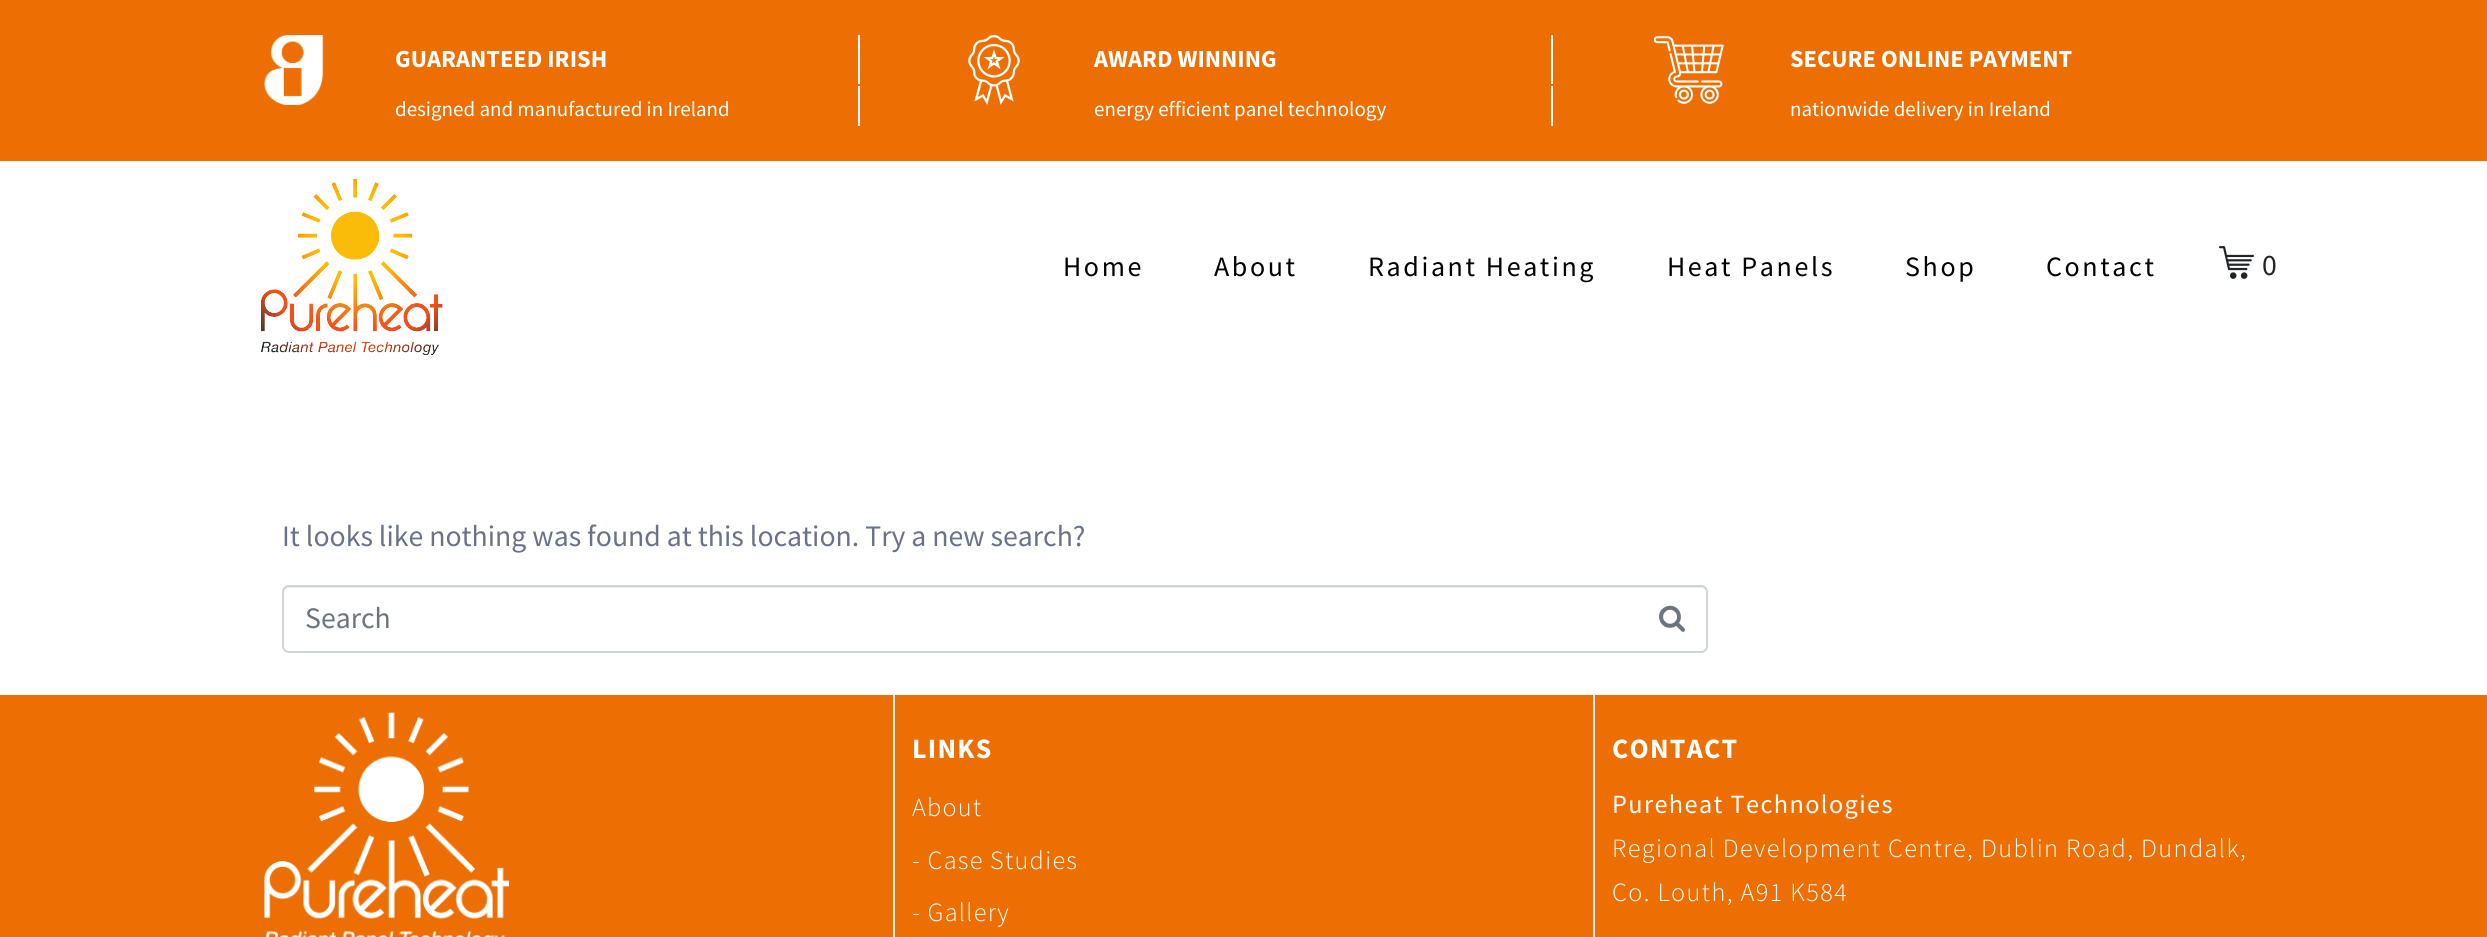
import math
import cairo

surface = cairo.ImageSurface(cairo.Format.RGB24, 2487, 937)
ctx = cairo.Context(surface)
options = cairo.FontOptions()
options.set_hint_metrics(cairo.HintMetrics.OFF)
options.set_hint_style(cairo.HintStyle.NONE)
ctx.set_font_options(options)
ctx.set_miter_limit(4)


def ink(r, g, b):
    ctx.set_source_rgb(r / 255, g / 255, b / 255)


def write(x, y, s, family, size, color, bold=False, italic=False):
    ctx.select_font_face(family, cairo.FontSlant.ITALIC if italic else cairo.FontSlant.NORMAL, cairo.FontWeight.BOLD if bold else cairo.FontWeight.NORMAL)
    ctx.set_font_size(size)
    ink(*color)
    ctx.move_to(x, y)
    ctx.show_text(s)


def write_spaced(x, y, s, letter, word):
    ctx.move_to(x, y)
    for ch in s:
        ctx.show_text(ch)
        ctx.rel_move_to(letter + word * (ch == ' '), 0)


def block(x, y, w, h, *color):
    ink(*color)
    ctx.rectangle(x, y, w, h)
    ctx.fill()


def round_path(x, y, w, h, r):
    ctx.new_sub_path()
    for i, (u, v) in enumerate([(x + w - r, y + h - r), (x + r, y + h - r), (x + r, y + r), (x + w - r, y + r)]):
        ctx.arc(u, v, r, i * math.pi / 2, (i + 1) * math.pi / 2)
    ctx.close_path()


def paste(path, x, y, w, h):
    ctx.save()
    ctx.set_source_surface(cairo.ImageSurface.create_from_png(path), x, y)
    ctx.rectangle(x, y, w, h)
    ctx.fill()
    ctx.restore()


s1 = dict(family="Source Sans Pro", size=24.5, color=(255, 255, 255), bold=True)
s2 = dict(family="Source Sans Pro", size=21, color=(255, 255, 255))
s3 = dict(family="Source Sans Pro", size=29.75, color=(33, 37, 41))
s4 = dict(family="Source Sans Pro", size=29.75, color=(107, 114, 135))
s5 = dict(family="Source Sans Pro", size=29.75, color=(108, 117, 125))

ink(255, 255, 255)
ctx.paint()
block(0, 0, 2487, 161, 237, 111, 4)
paste("pic1.png", 264, 35, 60, 70)
block(858, 35, 2, 49, 255, 255, 255)
write(395, 67, "GUARANTEED IRISH", **s1)
block(858, 86, 2, 40, 255, 255, 255)
write(395, 116, "designed and manufactured in Ireland", **s2)
paste("pic2.png", 968, 35, 52, 70)
block(1551, 35, 2, 49, 255, 255, 255)
write(1094, 67, "AWARD WINNING", **s1)
block(1551, 86, 2, 40, 255, 255, 255)
write(1094, 116, "energy efficient panel technology", **s2)
paste("pic3.png", 1654, 36, 70, 68)
write(1790, 67, "SECURE ONLINE PAYMENT", **s1)
write(1790, 116, "nationwide delivery in Ireland", **s2)
paste("pic4.png", 261, 179, 182, 176)
ctx.set_font_size(28)
ink(0, 0, 0)
write_spaced(1063, 276, "Home", 2.6, 0)
write_spaced(1214, 276, "About", 2.6, 0)
write_spaced(1368, 276, "Radiant Heating", 2.6, 0)
write_spaced(1667, 276, "Heat Panels", 2.6, 0)
write_spaced(1905, 276, "Shop", 2.6, 0)
write_spaced(2046, 276, "Contact", 2.6, 0)
paste("pic5.png", 2219, 246, 35, 33)
write(2262, 275, "0", **s3)
write(282, 546, "It looks like nothing was found at this location. Try a new search?", **s4)
ink(236, 236, 236)
ctx.new_path()
ctx.move_to(289, 588)
ctx.line_to(1701, 588)
ctx.curve_to(1704, 588, 1706, 590, 1706, 593)
ctx.curve_to(1706, 590, 1705, 586, 1701, 586)
ctx.line_to(289, 586)
ctx.curve_to(285, 586, 284, 590, 284, 593)
ctx.curve_to(284, 590, 286, 588, 289, 588)
ctx.close_path()
ctx.fill()
round_path(283, 586, 1424, 66, 6)
ink(206, 212, 218)
ctx.stroke()
write(305, 628, "Search", **s5)
paste("pic6.png", 1659, 605, 26, 27)
block(0, 695, 2487, 242, 237, 111, 4)
block(893, 695, 2, 242, 236, 236, 236)
paste("pic7.png", 264, 712, 245, 225)
block(1593, 695, 2, 242, 236, 236, 236)
ctx.select_font_face("Source Sans Pro", cairo.FontSlant.NORMAL, cairo.FontWeight.BOLD)
ctx.set_font_size(28)
ink(255, 255, 255)
write_spaced(912, 758, "LINKS", 1.25, 0)
ctx.select_font_face("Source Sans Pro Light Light")
ctx.set_font_size(26.25)
write_spaced(912, 816, "About", 1.25, 0)
write_spaced(912, 869, "- Case Studies", 1.25, 0)
write_spaced(912, 921, "- Gallery", 1.25, 0)
ctx.select_font_face("Source Sans Pro", cairo.FontSlant.NORMAL, cairo.FontWeight.BOLD)
ctx.set_font_size(28)
write_spaced(1612, 758, "CONTACT", 1.25, 0)
ctx.select_font_face("Source Sans Pro")
ctx.set_font_size(26.25)
write_spaced(1612, 813, "Pureheat Technologies", 1.4, 0)
ctx.select_font_face("Source Sans Pro Light Light")
write_spaced(1612, 857, "Regional Development Centre, Dublin Road, Dundalk,", 1.4, 0)
write_spaced(1612, 901, "Co. Louth, A91 K584", 1.4, 0)
surface.write_to_png("screenshot.png")
